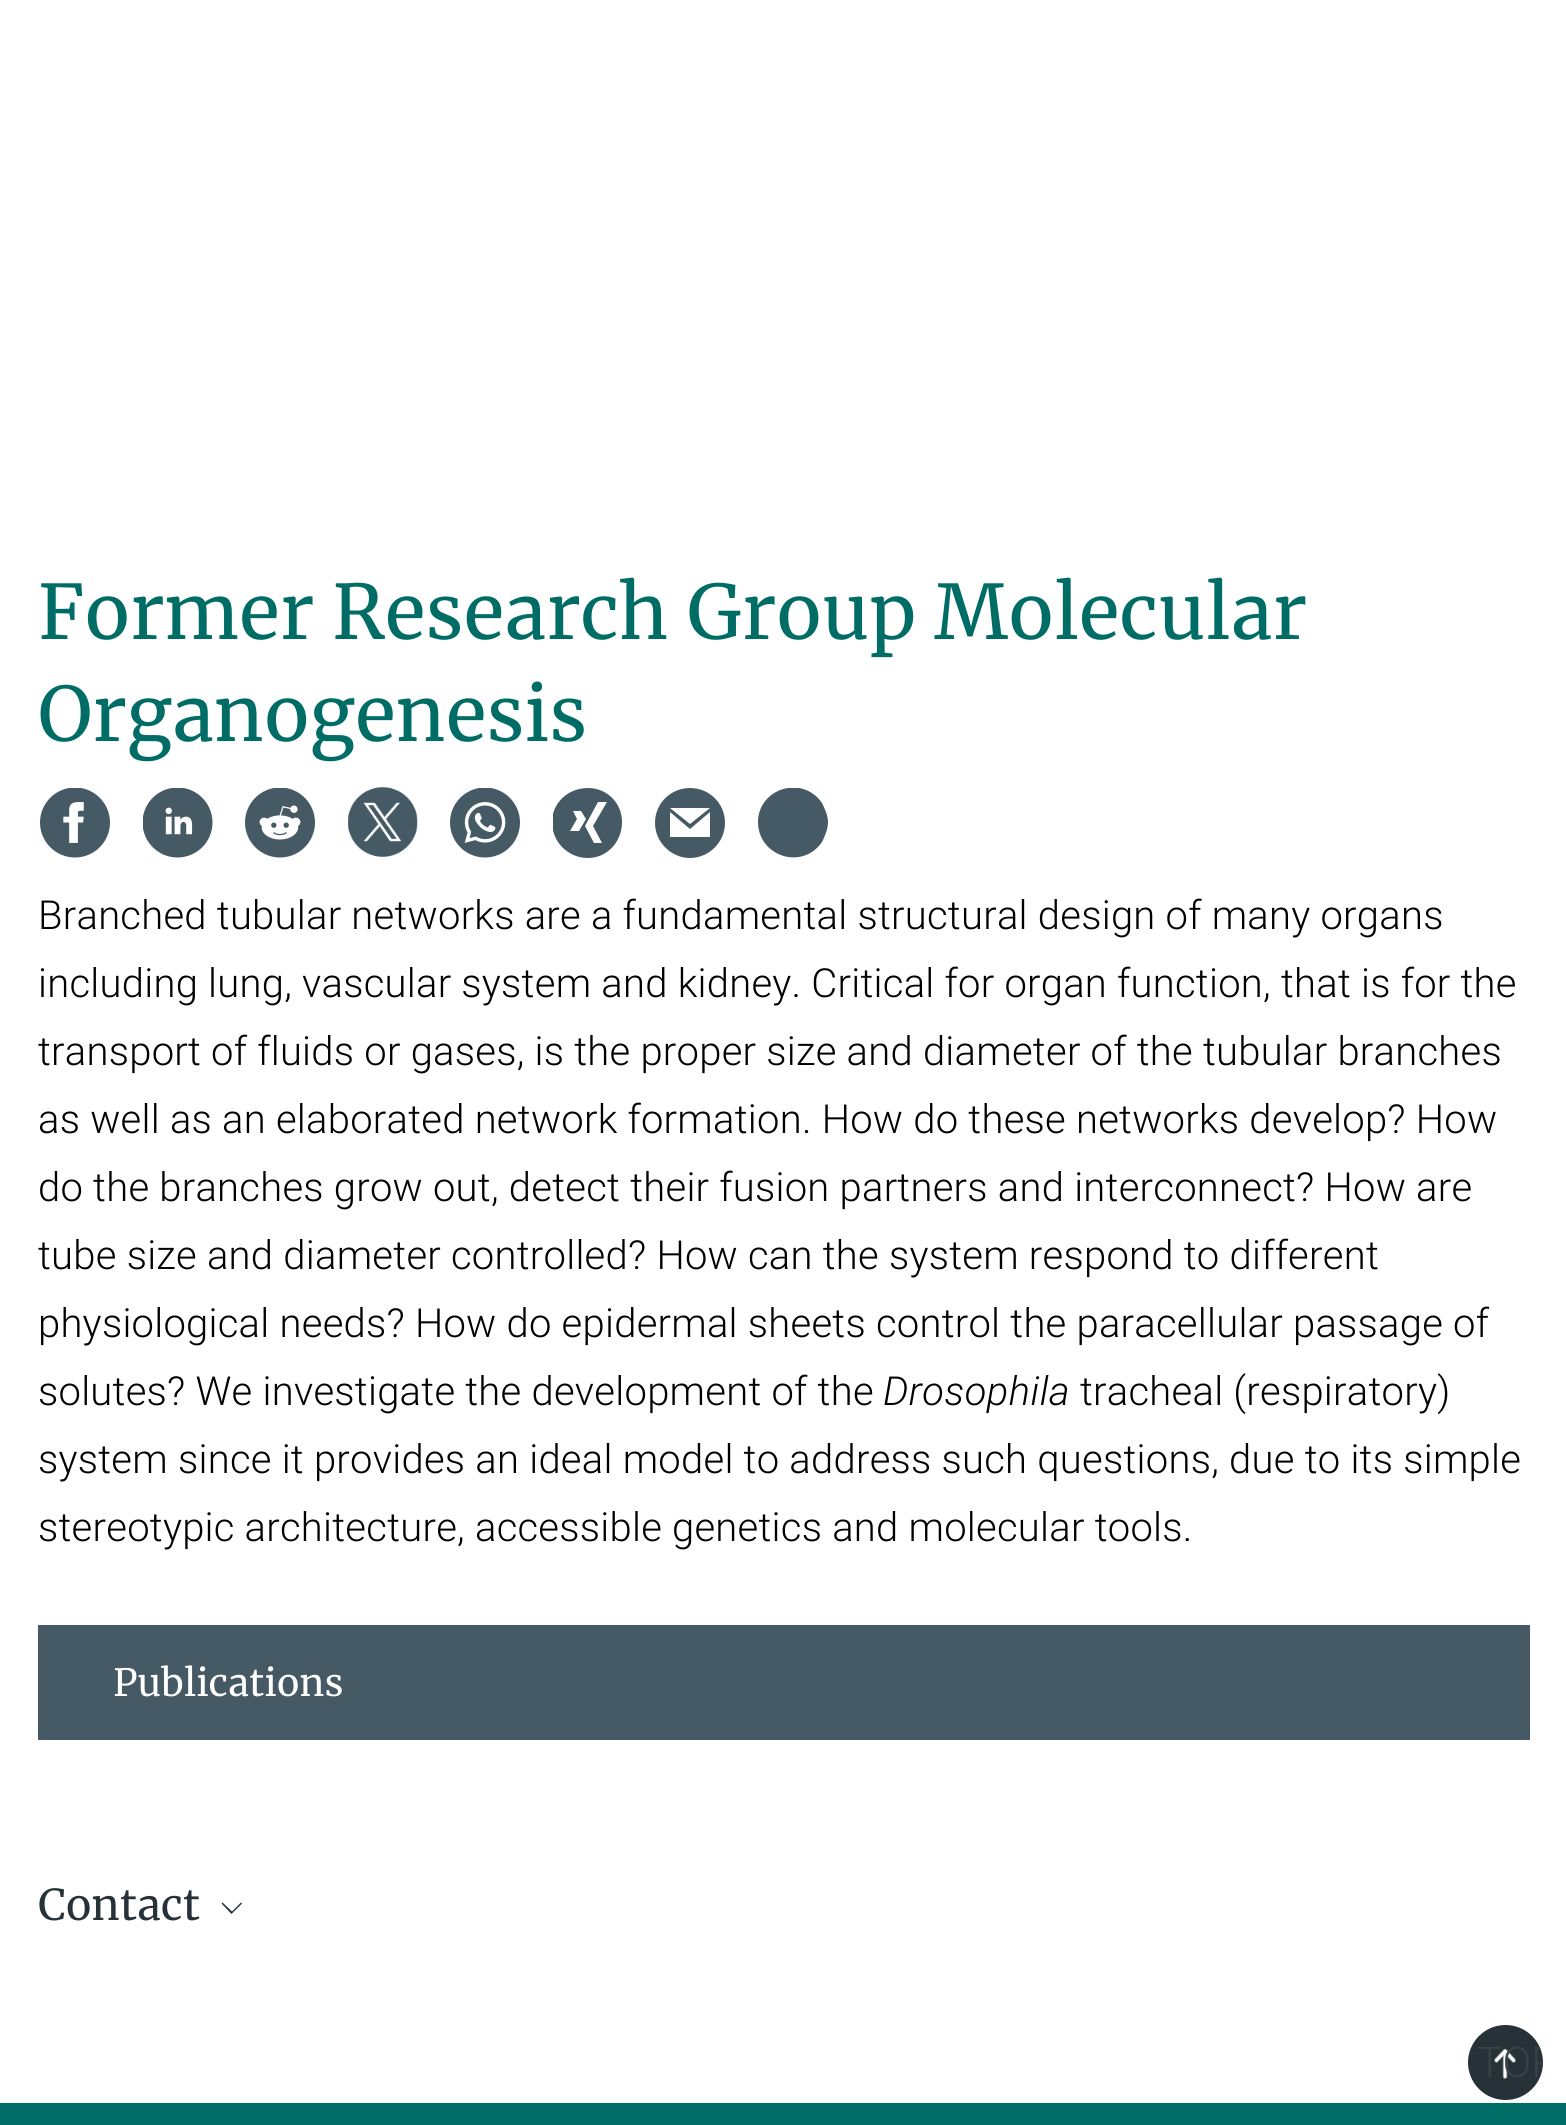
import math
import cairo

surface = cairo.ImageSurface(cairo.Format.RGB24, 1566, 2125)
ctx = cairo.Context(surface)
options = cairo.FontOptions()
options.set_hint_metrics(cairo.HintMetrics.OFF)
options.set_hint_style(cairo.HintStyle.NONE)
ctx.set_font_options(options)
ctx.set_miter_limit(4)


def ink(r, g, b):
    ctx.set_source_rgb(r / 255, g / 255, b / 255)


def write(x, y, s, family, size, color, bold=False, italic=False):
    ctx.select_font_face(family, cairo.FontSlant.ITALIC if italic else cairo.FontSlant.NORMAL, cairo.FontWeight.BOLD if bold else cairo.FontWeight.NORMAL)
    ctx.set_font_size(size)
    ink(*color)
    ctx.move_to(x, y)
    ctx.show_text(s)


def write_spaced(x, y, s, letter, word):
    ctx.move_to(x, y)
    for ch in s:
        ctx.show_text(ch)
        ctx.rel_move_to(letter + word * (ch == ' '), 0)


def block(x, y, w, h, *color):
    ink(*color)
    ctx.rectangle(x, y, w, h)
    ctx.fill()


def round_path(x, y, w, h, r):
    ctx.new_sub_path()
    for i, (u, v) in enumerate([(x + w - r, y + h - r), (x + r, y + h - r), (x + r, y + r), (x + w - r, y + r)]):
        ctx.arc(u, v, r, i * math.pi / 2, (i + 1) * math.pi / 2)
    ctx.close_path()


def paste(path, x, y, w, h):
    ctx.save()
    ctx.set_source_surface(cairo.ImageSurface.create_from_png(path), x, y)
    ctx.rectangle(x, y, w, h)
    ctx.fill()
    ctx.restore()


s1 = dict(family="Merriweather", size=75, color=(0, 108, 102))
s2 = dict(family="Merriweather", size=37.5, color=(255, 255, 255))
s3 = dict(family="Merriweather", size=42.5, color=(38, 50, 56))
s4 = dict(family="Roboto Light", size=42.5, color=(55, 66, 71))

ink(255, 255, 255)
ctx.paint()
write(38, 639, "Former Research Group Molecular", **s1)
write(38, 741, "Organogenesis", **s1)
paste("pic1.png", 40, 788, 70, 70)
paste("pic2.png", 143, 788, 70, 70)
paste("pic3.png", 245, 788, 70, 70)
paste("pic4.png", 348, 787, 70, 70)
paste("pic5.png", 450, 788, 70, 70)
ctx.save()
ctx.rectangle(553, 788, 70, 70)
ctx.clip()
ink(69, 90, 100)
ctx.new_path()
ctx.move_to(588, 788)
ctx.curve_to(568, 788, 552, 803, 552, 822)
ctx.curve_to(552, 842, 568, 858, 588, 858)
ctx.curve_to(607, 858, 622, 842, 622, 822)
ctx.curve_to(622, 803, 607, 788, 588, 788)
ctx.close_path()
ctx.move_to(570, 831)
ctx.line_to(577, 819)
ctx.line_to(573, 811)
ctx.line_to(581, 811)
ctx.line_to(586, 819)
ctx.line_to(579, 831)
ctx.close_path()
ctx.move_to(602, 843)
ctx.line_to(594, 843)
ctx.line_to(585, 826)
ctx.line_to(598, 802)
ctx.line_to(607, 802)
ctx.line_to(593, 826)
ctx.close_path()
ctx.fill()
ctx.restore()
ink(69, 90, 100)
ctx.new_path()
ctx.move_to(690, 788)
ctx.curve_to(671, 788, 655, 803, 655, 823)
ctx.curve_to(655, 842, 671, 858, 690, 858)
ctx.curve_to(709, 858, 725, 842, 725, 823)
ctx.curve_to(725, 803, 709, 788, 690, 788)
ctx.close_path()
ctx.move_to(710, 808)
ctx.line_to(690, 824)
ctx.line_to(670, 808)
ctx.close_path()
ctx.move_to(710, 837)
ctx.line_to(670, 837)
ctx.line_to(670, 812)
ctx.line_to(690, 829)
ctx.line_to(710, 812)
ctx.close_path()
ctx.fill()
ctx.save()
ctx.rectangle(758, 788, 70, 70)
ctx.clip()
ctx.new_path()
ctx.move_to(828, 822)
ctx.curve_to(828, 829, 825, 836, 822, 842)
ctx.curve_to(802, 871, 758, 856, 758, 822)
ctx.curve_to(758, 789, 802, 774, 822, 803)
ctx.curve_to(825, 809, 828, 816, 828, 822)
ctx.close_path()
ctx.fill()
ctx.restore()
ctx.select_font_face("Roboto Light")
ctx.set_font_size(40)
ink(0, 0, 0)
write_spaced(38, 929, "Branched tubular networks are a fundamental structural design of many organs", 0.25, 0)
write_spaced(38, 997, "including lung, vascular system and kidney. Critical for organ function, that is for the", 0.25, 0)
write_spaced(38, 1065, "transport of fluids or gases, is the proper size and diameter of the tubular branches", 0.25, 0)
write_spaced(38, 1133, "as well as an elaborated network formation. How do these networks develop? How", 0.25, 0)
write_spaced(38, 1201, "do the branches grow out, detect their fusion partners and interconnect? How are", 0.25, 0)
write_spaced(38, 1269, "tube size and diameter controlled? How can the system respond to different", 0.25, 0)
write_spaced(38, 1337, "physiological needs? How do epidermal sheets control the paracellular passage of", 0.25, 0)
write_spaced(38, 1405, "solutes? We investigate the development of the", 0.25, 0)
ctx.select_font_face("Roboto Light", cairo.FontSlant.ITALIC)
write_spaced(883, 1405, "Drosophila", 0.25, 0)
ctx.select_font_face("Roboto Light")
write_spaced(1080, 1405, "tracheal (respiratory)", 0.25, 0)
write_spaced(38, 1473, "system since it provides an ideal model to address such questions, due to its simple", 0.25, 0)
write_spaced(38, 1541, "stereotypic architecture, accessible genetics and molecular tools.", 0.25, 0)
block(38, 1625, 1492, 115, 69, 90, 100)
write(113, 1696, "Publications", **s2)
write(38, 1920, "Contact", **s3)
ctx.new_path()
ctx.move_to(221.5, 1903.5)
ctx.line_to(222.5, 1902.5)
ctx.line_to(232, 1911.5)
ctx.line_to(241, 1902.5)
ctx.line_to(242, 1903.5)
ctx.line_to(231.5, 1914)
ctx.close_path()
ctx.fill()
block(0, 2103, 1566, 22, 0, 108, 102)
ink(38, 50, 56)
ctx.arc(1505.5, 2062.5, 37.5, 0, 2 * math.pi)
ctx.fill()
paste("pic6.png", 1494, 2048, 22, 31)
ctx.save()
round_path(1468, 2025, 75, 75, 37.5)
ctx.clip()
write(1477, 2077, "TOP", **s4)
ctx.restore()
surface.write_to_png("screenshot.png")
